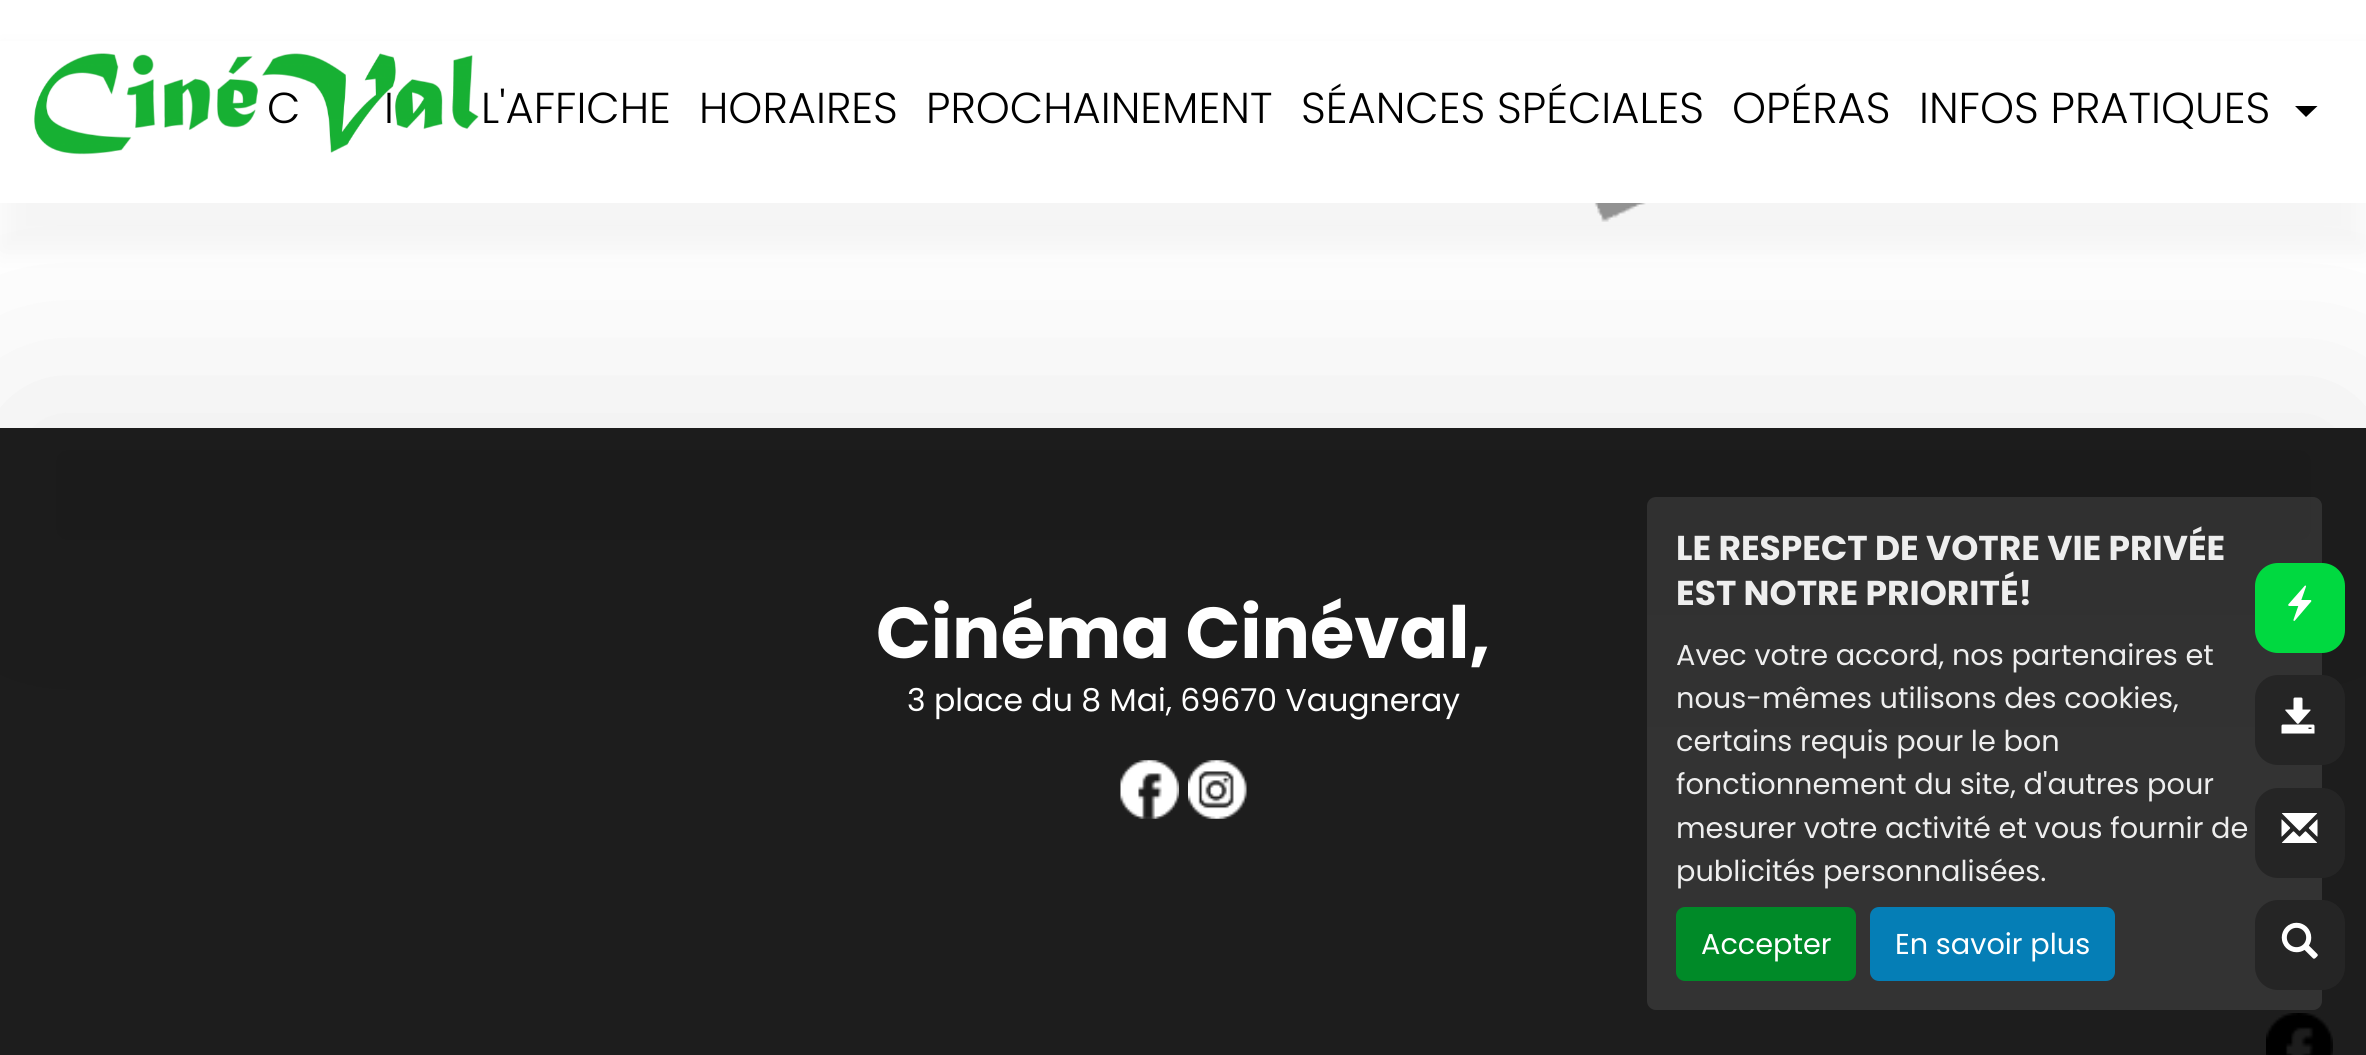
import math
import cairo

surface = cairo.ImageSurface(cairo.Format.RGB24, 2366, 1055)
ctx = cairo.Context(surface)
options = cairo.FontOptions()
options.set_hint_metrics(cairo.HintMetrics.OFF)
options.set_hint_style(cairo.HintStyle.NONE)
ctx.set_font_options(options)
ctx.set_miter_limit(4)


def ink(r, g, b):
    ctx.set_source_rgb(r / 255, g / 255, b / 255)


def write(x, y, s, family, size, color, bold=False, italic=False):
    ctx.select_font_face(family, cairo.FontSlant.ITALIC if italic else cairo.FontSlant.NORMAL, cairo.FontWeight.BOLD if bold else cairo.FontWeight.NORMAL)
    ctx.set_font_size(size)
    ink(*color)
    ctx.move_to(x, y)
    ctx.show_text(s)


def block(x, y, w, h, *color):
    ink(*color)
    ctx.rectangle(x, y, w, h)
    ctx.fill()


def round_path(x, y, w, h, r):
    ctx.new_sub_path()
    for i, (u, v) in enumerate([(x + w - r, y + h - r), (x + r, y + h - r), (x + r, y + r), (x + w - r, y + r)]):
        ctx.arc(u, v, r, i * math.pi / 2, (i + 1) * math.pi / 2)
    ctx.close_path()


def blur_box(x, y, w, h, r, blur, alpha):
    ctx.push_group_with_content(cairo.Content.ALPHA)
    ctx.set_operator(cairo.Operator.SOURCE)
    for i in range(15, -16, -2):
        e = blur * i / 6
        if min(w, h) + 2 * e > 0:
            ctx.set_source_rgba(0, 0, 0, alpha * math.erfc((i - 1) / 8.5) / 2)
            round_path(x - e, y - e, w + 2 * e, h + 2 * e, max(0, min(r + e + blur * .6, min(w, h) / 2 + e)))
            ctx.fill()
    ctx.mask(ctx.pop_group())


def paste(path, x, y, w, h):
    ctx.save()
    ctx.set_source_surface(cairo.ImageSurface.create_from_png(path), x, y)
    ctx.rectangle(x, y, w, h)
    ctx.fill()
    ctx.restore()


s1 = dict(family="Poppins Light", size=43.25, color=(0, 0, 0))
s2 = dict(family="Poppins", size=72, color=(255, 255, 255), bold=True)
s3 = dict(family="Poppins", size=31.5, color=(255, 255, 255))
s4 = dict(family="Poppins", size=34.5, color=(238, 238, 238), bold=True)
s5 = dict(family="Poppins", size=28.75, color=(238, 238, 238))
s6 = dict(family="Poppins", size=28.75, color=(255, 255, 255))

ink(255, 255, 255)
ctx.paint()
paste("pic2.png", 1483, 203, 484, 19)
block(0, 428, 2366, 627, 29, 29, 29)
paste("pic3.png", 1120, 760, 59, 59)
paste("pic4.png", 1188, 760, 59, 59)
ink(51, 51, 51)
round_path(1647, 497, 675, 513, 9)
ctx.fill()
ink(0, 138, 40)
round_path(1676, 907, 180, 74, 9)
ctx.fill()
ink(5, 126, 182)
round_path(1870, 907, 245, 74, 9)
ctx.fill()
ink(0, 0, 0)
blur_box(0, 394, 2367, 202, 0, 112.5, 0.08)
blur_box(0, 50, 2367, 202, 0, 14, 0.04)
block(0, 41, 2366, 162, 255, 255, 255)
write(267, 123, "C", **s1)
write(384, 123, "I", **s1)
paste("pic1.png", 34, 53, 445, 102)
write(481, 123, "L'AFFICHE", **s1)
write(699, 123, "HORAIRES", **s1)
write(926, 123, "PROCHAINEMENT", **s1)
write(1301, 123, "SÉANCES SPÉCIALES", **s1)
write(1732, 123, "OPÉRAS", **s1)
write(1919, 123, "INFOS PRATIQUES", **s1)
ctx.new_path()
ctx.move_to(2295, 106)
ctx.line_to(2317.5, 106)
ctx.line_to(2306, 117)
ctx.close_path()
ctx.fill()
write(876, 658, "Cinéma Cinéval,", **s2)
write(907, 711, "3 place du 8 Mai, 69670 Vaugneray", **s3)
write(1676, 560, "LE RESPECT DE VOTRE VIE PRIVÉE", **s4)
write(1676, 605, "EST NOTRE PRIORITÉ!", **s4)
write(1676, 665, "Avec votre accord, nos partenaires et", **s5)
write(1676, 708, "nous-mêmes utilisons des cookies,", **s5)
write(1676, 751, "certains requis pour le bon", **s5)
write(1676, 794, "fonctionnement du site, d'autres pour", **s5)
write(1676, 838, "mesurer votre activité et vous fournir de", **s5)
write(1676, 881, "publicités personnalisées.", **s5)
write(1701, 954, "Accepter", **s6)
write(1895, 954, "En savoir plus", **s6)
ink(0, 217, 64)
round_path(2255, 563, 90, 90, 23)
ctx.fill()
paste("pic5.png", 2288, 585, 24, 36)
ink(37, 37, 37)
round_path(2255, 675, 90, 90, 23)
ctx.fill()
paste("pic6.png", 2281, 697, 34, 37)
round_path(2255, 788, 90, 90, 23)
ctx.fill()
paste("pic7.png", 2281, 813, 37, 30)
round_path(2255, 900, 90, 90, 23)
ctx.fill()
paste("pic8.png", 2281, 922, 37, 37)
paste("pic9.png", 2266, 1013, 67, 42)
surface.write_to_png("screenshot.png")
